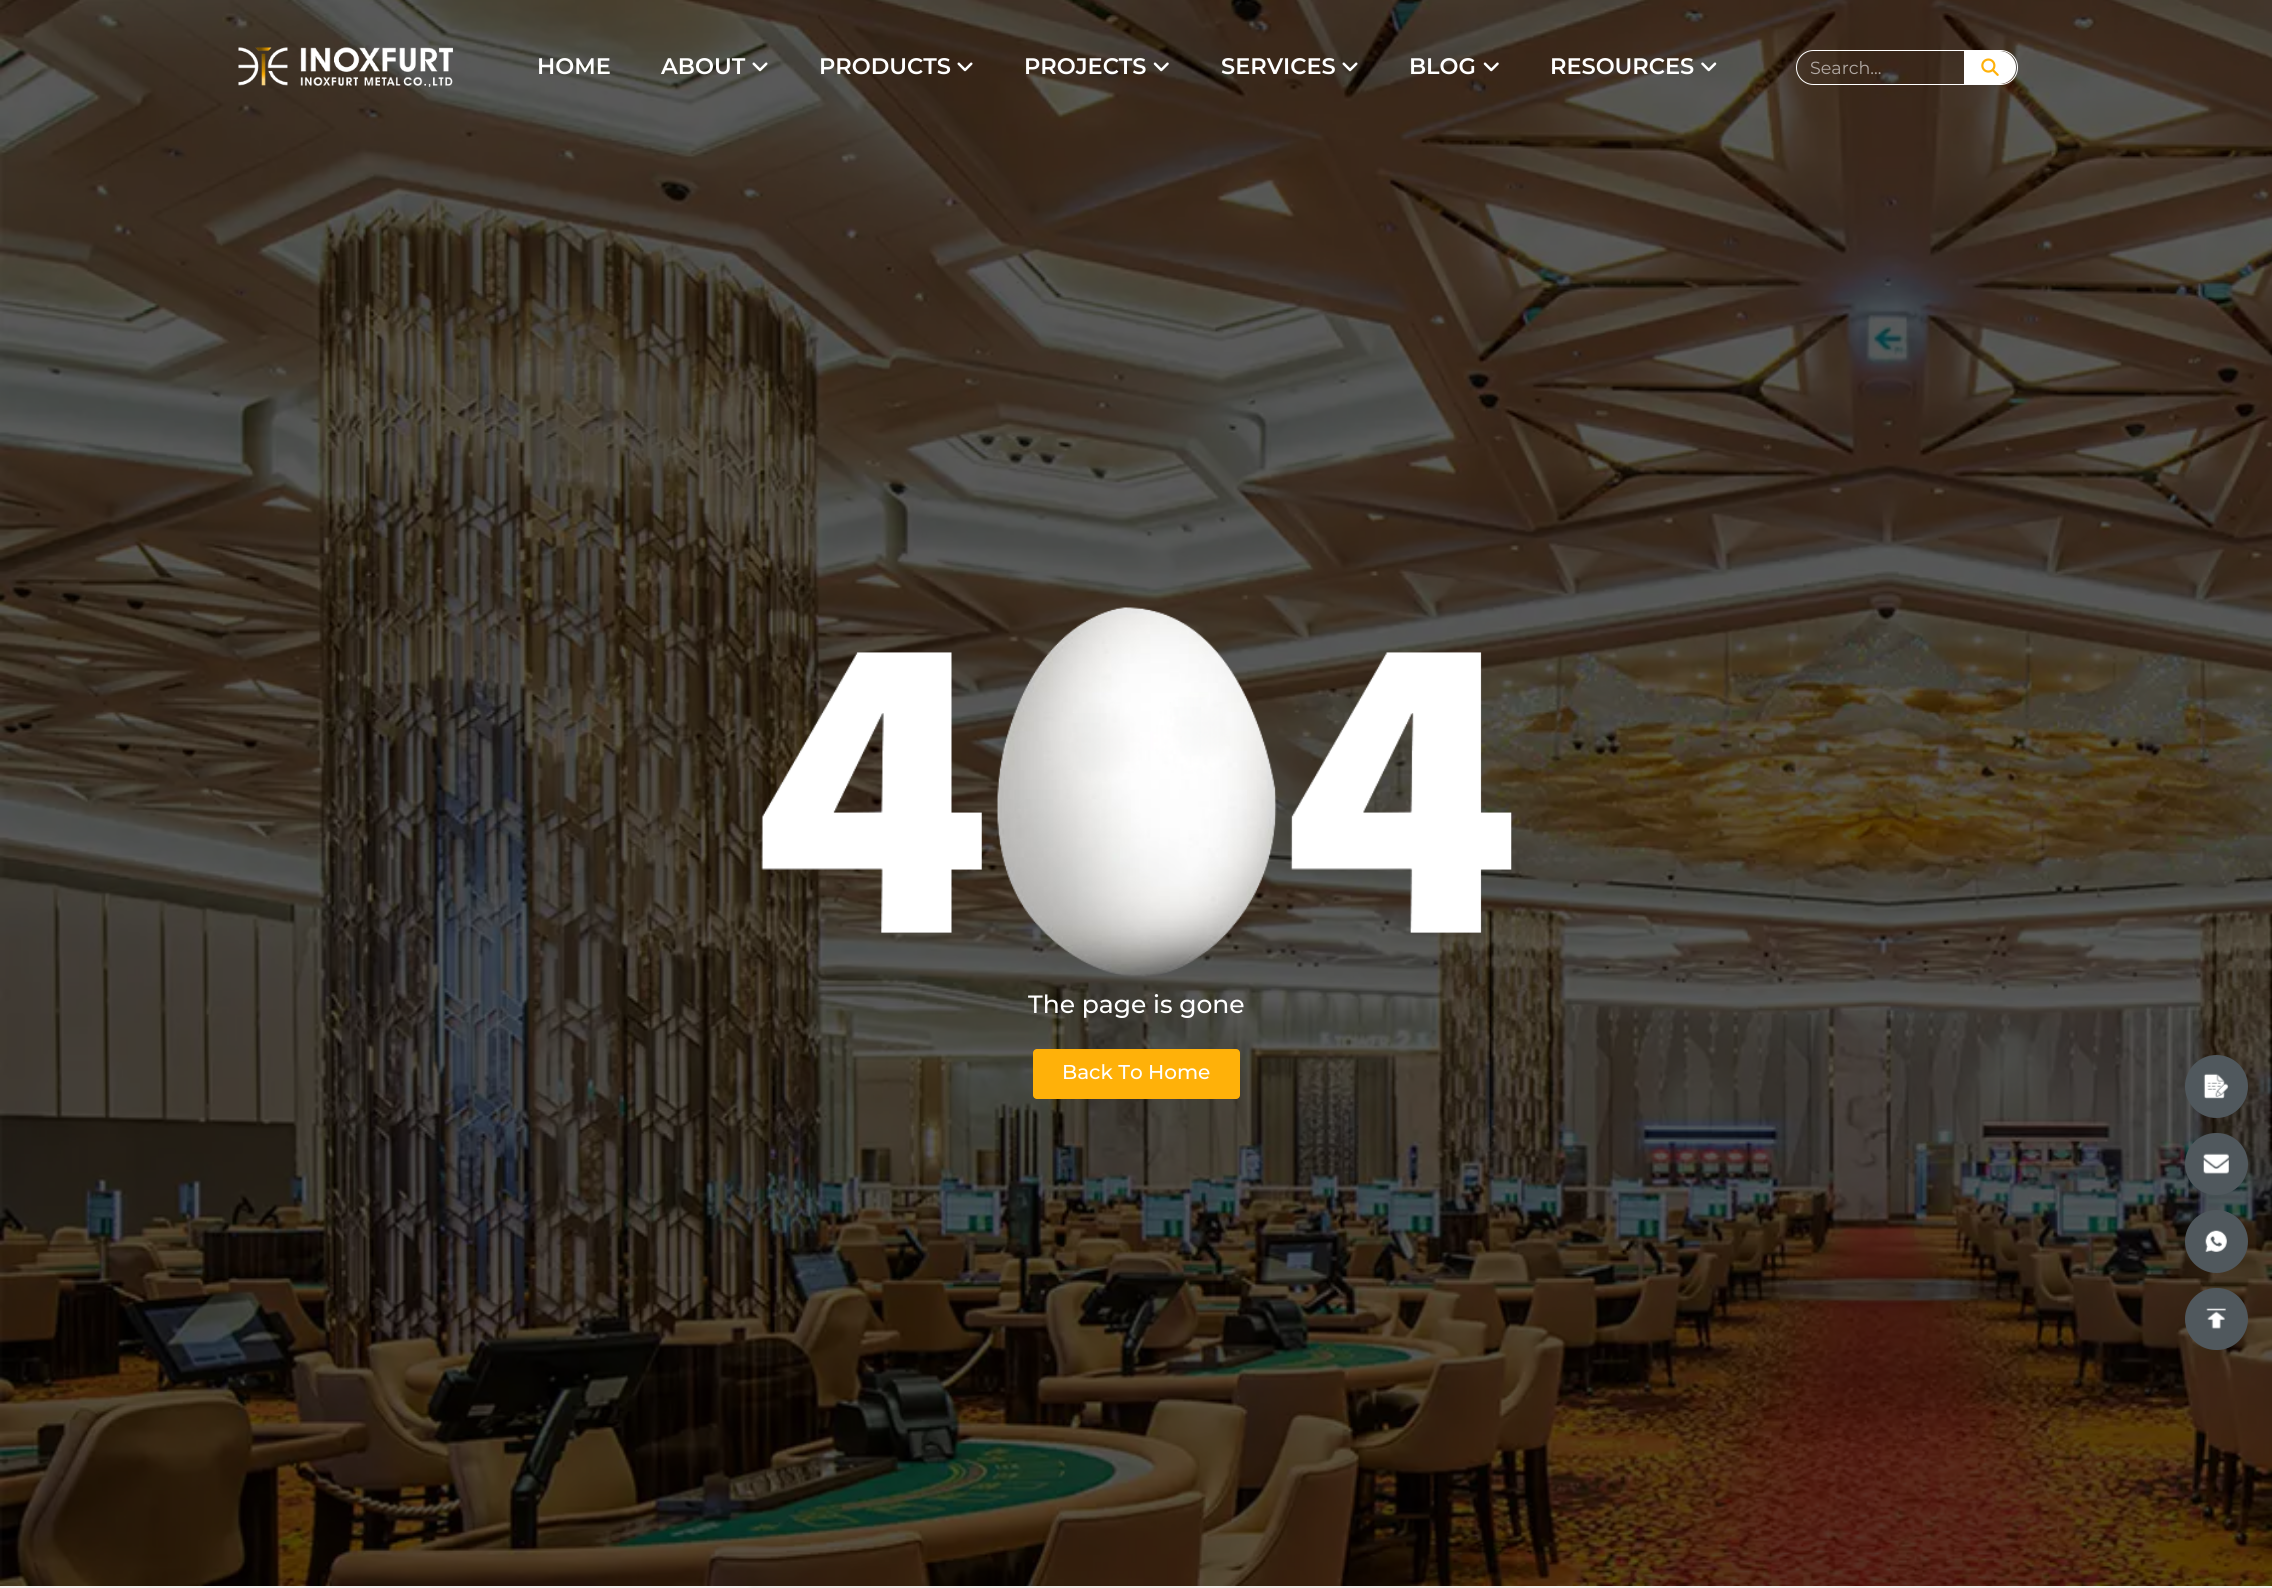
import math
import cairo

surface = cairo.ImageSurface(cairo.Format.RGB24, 2272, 1588)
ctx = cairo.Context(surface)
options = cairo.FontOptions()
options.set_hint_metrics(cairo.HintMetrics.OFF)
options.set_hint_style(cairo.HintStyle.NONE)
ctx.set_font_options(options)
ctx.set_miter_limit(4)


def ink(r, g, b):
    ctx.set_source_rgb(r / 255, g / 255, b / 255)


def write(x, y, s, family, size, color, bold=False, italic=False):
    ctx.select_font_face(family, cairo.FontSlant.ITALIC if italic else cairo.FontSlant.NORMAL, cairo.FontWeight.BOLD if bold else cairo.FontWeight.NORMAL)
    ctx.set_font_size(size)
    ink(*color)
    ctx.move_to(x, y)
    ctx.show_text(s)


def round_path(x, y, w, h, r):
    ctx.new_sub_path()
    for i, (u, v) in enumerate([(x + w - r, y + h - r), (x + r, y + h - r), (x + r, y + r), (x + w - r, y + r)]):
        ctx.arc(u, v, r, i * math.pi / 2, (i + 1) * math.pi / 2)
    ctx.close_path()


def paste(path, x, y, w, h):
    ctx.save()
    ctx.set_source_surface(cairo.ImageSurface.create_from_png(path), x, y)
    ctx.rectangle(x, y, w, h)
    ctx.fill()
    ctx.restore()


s1 = dict(family="Montserrat SemiBold", size=22.5, color=(255, 255, 255))
s2 = dict(family="Montserrat", size=17.5, color=(178, 170, 165))
s3 = dict(family="Montserrat Medium", size=25, color=(255, 255, 255))
s4 = dict(family="Montserrat Medium", size=20, color=(255, 255, 255))

ink(255, 255, 255)
ctx.paint()
paste("pic9.png", 0, 0, 2272, 1587)
paste("pic1.png", 238, 47, 215, 40)
write(537, 74, "HOME", **s1)
write(661, 74, "ABOUT", **s1)
paste("pic2.png", 752, 62, 16, 10)
write(819, 74, "PRODUCTS", **s1)
paste("pic3.png", 957, 62, 16, 10)
write(1024, 74, "PROJECTS", **s1)
paste("pic4.png", 1153, 62, 16, 10)
write(1221, 74, "SERVICES", **s1)
paste("pic5.png", 1342, 62, 16, 10)
write(1409, 74, "BLOG", **s1)
paste("pic6.png", 1483, 62, 16, 10)
write(1550, 74, "RESOURCES", **s1)
paste("pic7.png", 1701, 62, 16, 10)
round_path(1796.5, 50.5, 221, 34, 17)
ctx.set_line_width(1)
ctx.stroke()
write(1810, 74, "Search...", **s2)
ink(255, 255, 255)
ctx.new_path()
ctx.move_to(1964, 51)
ctx.line_to(1999.5, 51)
ctx.curve_to(2008.5, 51, 2016, 58.5, 2016, 67.5)
ctx.curve_to(2016, 76.5, 2008.5, 84, 1999.5, 84)
ctx.line_to(1964, 84)
ctx.close_path()
ctx.fill()
paste("pic8.png", 1981, 58, 18, 18)
paste("pic10.png", 761, 607, 751, 370)
write(1028, 1013, "The page is gone", **s3)
ink(255, 177, 9)
round_path(1033, 1049, 207, 50, 4)
ctx.fill()
write(1062, 1079, "Back To Home", **s4)
paste("pic11.png", 0, 1586, 2272, 2)
ink(80, 88, 93)
ctx.arc(2216.5, 1086.5, 31.5, 0, 2 * math.pi)
ctx.fill()
paste("pic12.png", 2203, 1073, 26, 26)
round_path(2185, 1133, 63, 62, 31)
ctx.fill()
paste("pic13.png", 2203, 1153, 26, 21)
ctx.arc(2216.5, 1241.5, 31.5, 0, 2 * math.pi)
ctx.fill()
paste("pic14.png", 2205, 1230, 22, 22)
round_path(2185, 1288, 63, 62, 31)
ctx.fill()
paste("pic15.png", 2206, 1308, 20, 21)
ctx.set_source_rgba(0.961, 0.961, 0.961, 0.92)
ctx.rectangle(0, 1586, 2272, 2)
ctx.fill()
surface.write_to_png("screenshot.png")
